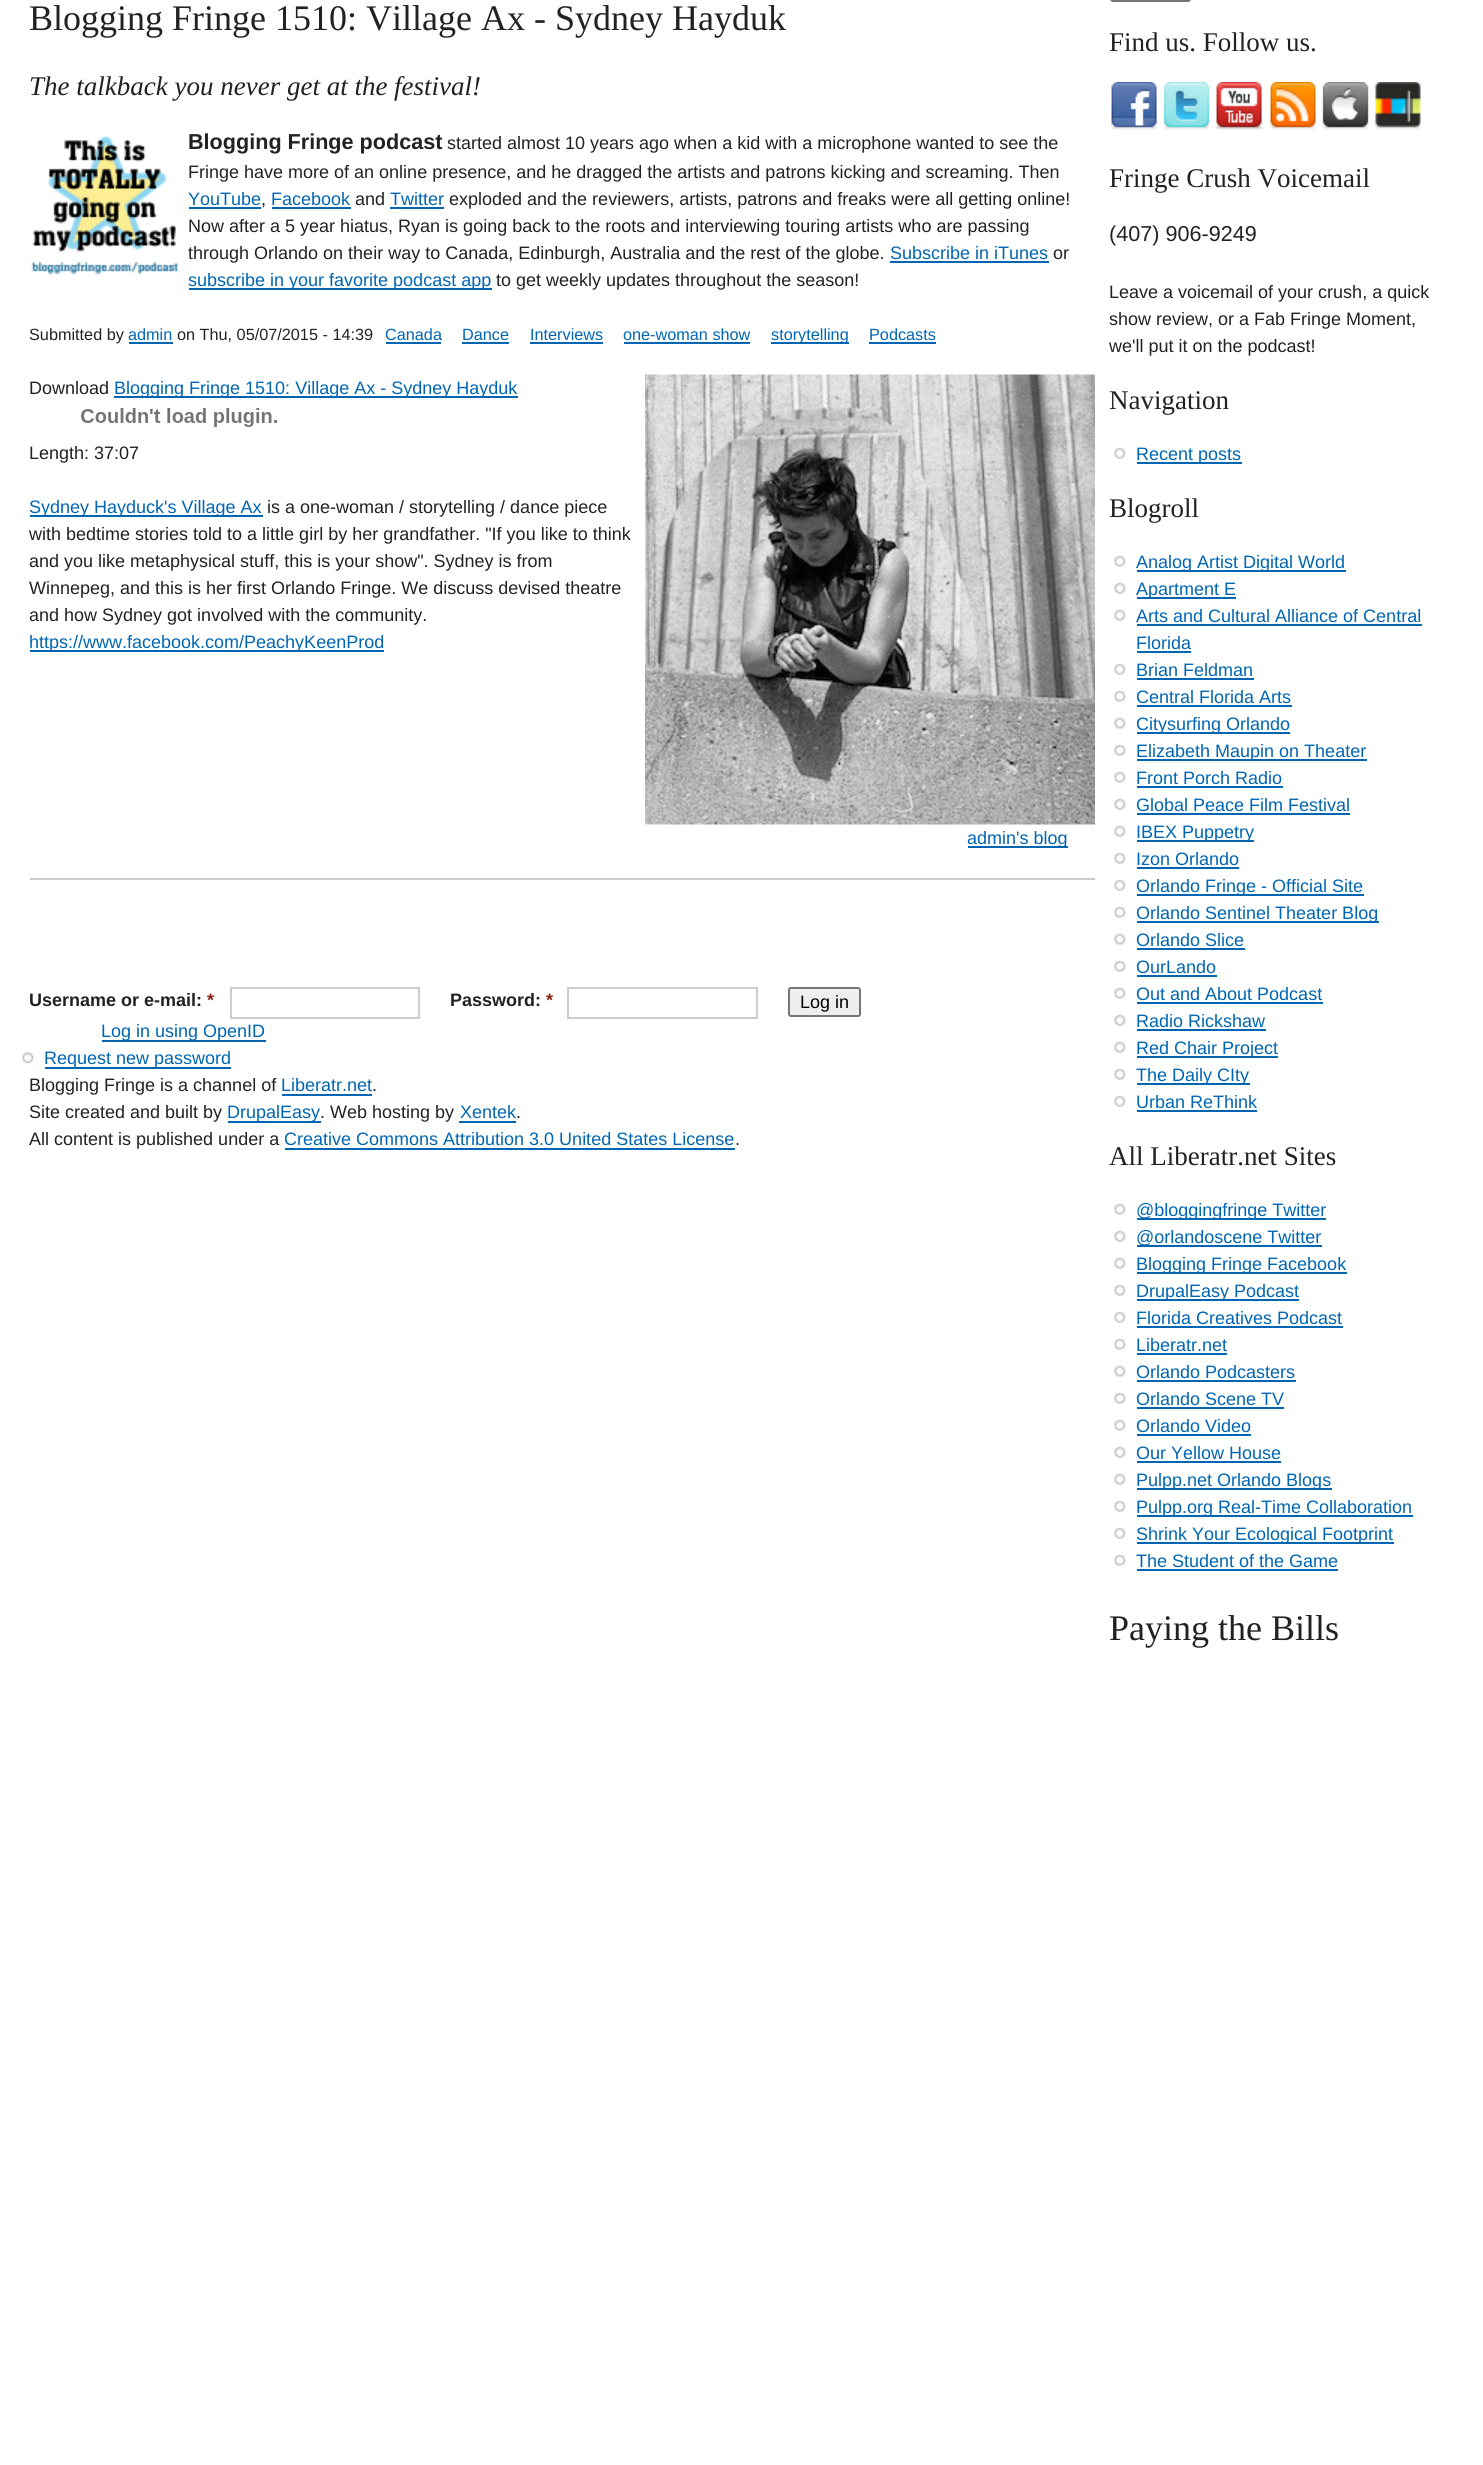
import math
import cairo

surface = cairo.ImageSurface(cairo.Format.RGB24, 1483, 2465)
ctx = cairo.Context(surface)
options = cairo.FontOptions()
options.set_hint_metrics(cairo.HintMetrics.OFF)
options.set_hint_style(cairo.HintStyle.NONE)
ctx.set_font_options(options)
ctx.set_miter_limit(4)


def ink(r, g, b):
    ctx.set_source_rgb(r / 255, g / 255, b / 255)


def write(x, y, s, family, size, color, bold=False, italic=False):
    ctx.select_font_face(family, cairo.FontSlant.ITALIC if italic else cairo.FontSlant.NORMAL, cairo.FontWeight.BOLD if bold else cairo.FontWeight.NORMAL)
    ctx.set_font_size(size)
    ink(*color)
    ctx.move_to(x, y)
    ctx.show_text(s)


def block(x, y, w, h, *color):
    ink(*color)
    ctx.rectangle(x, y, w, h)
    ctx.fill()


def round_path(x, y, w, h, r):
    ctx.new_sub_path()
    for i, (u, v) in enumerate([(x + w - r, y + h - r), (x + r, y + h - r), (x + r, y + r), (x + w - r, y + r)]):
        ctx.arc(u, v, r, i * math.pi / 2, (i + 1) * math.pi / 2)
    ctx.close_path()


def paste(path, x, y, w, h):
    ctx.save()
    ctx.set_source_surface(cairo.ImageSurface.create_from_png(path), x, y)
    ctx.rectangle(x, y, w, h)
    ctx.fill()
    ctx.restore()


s1 = dict(family="Liberation Serif", size=36, color=(34, 34, 34))
s2 = dict(family="Liberation Serif", size=27, color=(34, 34, 34), italic=True)
s3 = dict(family="Liberation Sans", size=21.6, color=(34, 34, 34), bold=True)
s4 = dict(family="Liberation Sans", size=18, color=(34, 34, 34))
s5 = dict(family="Liberation Sans", size=18, color=(0, 102, 179))
s6 = dict(family="Liberation Sans", size=16.25, color=(34, 34, 34))
s7 = dict(family="Liberation Sans", size=16.25, color=(0, 102, 179))
s8 = dict(family="Liberation Sans", size=18, color=(34, 34, 34), bold=True)
s9 = dict(family="Liberation Sans", size=18, color=(138, 31, 17), bold=True)
s10 = dict(family="Liberation Sans", size=18, color=(0, 0, 0))
s11 = dict(family="Liberation Serif", size=27, color=(34, 34, 34))
s12 = dict(family="Liberation Sans", size=21.6, color=(34, 34, 34))

ink(255, 255, 255)
ctx.paint()
write(29, 30, "Blogging Fringe 1510: Village Ax - Sydney Hayduk", **s1)
write(29, 95, "The talkback you never get at the festival!", **s2)
paste("pic1.png", 31, 135, 148, 140)
write(188, 149, "Blogging Fringe podcast", **s3)
write(447, 149, "started almost 10 years ago when a kid with a microphone wanted to see the", **s4)
write(188, 178, "Fringe have more of an online presence, and he dragged the artists and patrons kicking and screaming. Then", **s4)
write(188, 205, "YouTube", **s5)
block(189, 207, 72, 2, 0, 102, 179)
write(261, 205, ",", **s4)
write(271, 205, "Facebook", **s5)
block(272, 207, 79, 2, 0, 102, 179)
write(355, 205, "and", **s4)
write(390, 205, "Twitter", **s5)
block(390, 207, 54, 2, 0, 102, 179)
write(449, 205, "exploded and the reviewers, artists, patrons and freaks were all getting online!", **s4)
write(188, 232, "Now after a 5 year hiatus, Ryan is going back to the roots and interviewing touring artists who are passing", **s4)
write(188, 259, "through Orlando on their way to Canada, Edinburgh, Australia and the rest of the globe.", **s4)
write(890, 259, "Subscribe in iTunes", **s5)
block(890, 261, 159, 2, 0, 102, 179)
write(1053, 259, "or", **s4)
block(189, 288, 303, 2, 0, 102, 179)
write(188, 286, "subscribe in your favorite podcast app", **s5)
write(496, 286, "to get weekly updates throughout the season!", **s4)
block(30, 878, 1065, 2, 204, 204, 204)
write(29, 340, "Submitted by", **s6)
write(128, 340, "admin", **s7)
block(129, 342, 44, 2, 0, 102, 179)
write(177, 340, "on Thu, 05/07/2015 - 14:39", **s6)
write(385, 340, "Canada", **s7)
block(386, 342, 55, 2, 0, 102, 179)
write(462, 340, "Dance", **s7)
block(462, 342, 47, 2, 0, 102, 179)
write(530, 340, "Interviews", **s7)
block(530, 342, 73, 2, 0, 102, 179)
write(623, 340, "one-woman show", **s7)
block(624, 342, 126, 2, 0, 102, 179)
block(771, 342, 78, 2, 0, 102, 179)
write(771, 340, "storytelling", **s7)
write(869, 340, "Podcasts", **s7)
block(869, 342, 67, 2, 0, 102, 179)
write(29, 394, "Download", **s4)
block(114, 396, 404, 2, 0, 102, 179)
write(114, 394, "Blogging Fringe 1510: Village Ax - Sydney Hayduk", **s5)
paste("pic2.png", 645, 374, 450, 451)
paste("pic3.png", 81, 408, 196, 19)
write(29, 459, "Length: 37:07", **s4)
block(30, 515, 233, 2, 0, 102, 179)
write(29, 513, "Sydney Hayduck's Village Ax", **s5)
write(267, 513, "is a one-woman / storytelling / dance piece", **s4)
write(29, 540, "with bedtime stories told to a little girl by her grandfather. \"If you like to think", **s4)
write(29, 567, "and you like metaphysical stuff, this is your show\". Sydney is from", **s4)
write(29, 594, "Winnepeg, and this is her first Orlando Fringe. We discuss devised theatre", **s4)
write(29, 621, "and how Sydney got involved with the community.", **s4)
block(30, 650, 354, 2, 0, 102, 179)
write(29, 648, "https://www.facebook.com/PeachyKeenProd", **s5)
block(968, 846, 100, 2, 0, 102, 179)
write(967, 844, "admin's blog", **s5)
write(29, 1006, "Username or e-mail:", **s8)
write(207, 1006, "*", **s9)
ctx.rectangle(231, 988, 188, 30)
ink(204, 204, 204)
ctx.stroke()
write(450, 1006, "Password:", **s8)
write(546, 1006, "*", **s9)
ctx.rectangle(568, 988, 189, 30)
ink(204, 204, 204)
ctx.stroke()
ink(239, 239, 239)
round_path(789, 988, 71, 28, 2)
ctx.fill_preserve()
ink(118, 118, 118)
ctx.stroke()
write(800, 1008, "Log in", **s10)
block(102, 1040, 164, 2, 0, 102, 179)
write(101, 1037, "Log in using OpenID", **s5)
paste("pic4.png", 22, 1052, 12, 12)
block(45, 1067, 186, 2, 0, 102, 179)
write(44, 1064, "Request new password", **s5)
write(29, 1091, "Blogging Fringe is a channel of", **s4)
write(281, 1091, "Liberatr.net", **s5)
block(282, 1094, 90, 2, 0, 102, 179)
write(372, 1091, ".", **s4)
write(29, 1118, "Site created and built by", **s4)
block(228, 1121, 93, 2, 0, 102, 179)
write(227, 1118, "DrupalEasy", **s5)
write(320, 1118, ". Web hosting by", **s4)
write(460, 1118, "Xentek", **s5)
block(459, 1121, 57, 2, 0, 102, 179)
write(516, 1118, ".", **s4)
write(29, 1145, "All content is published under a", **s4)
write(284, 1145, "Creative Commons Attribution 3.0 United States License", **s5)
block(285, 1148, 450, 2, 0, 102, 179)
write(735, 1145, ".", **s4)
round_path(1111, -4, 79, 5, 2)
ink(118, 118, 118)
ctx.stroke()
write(1109, 51, "Find us. Follow us.", **s11)
paste("pic5.png", 1110, 82, 48, 48)
paste("pic6.png", 1163, 82, 47, 48)
paste("pic7.png", 1215, 82, 48, 48)
paste("pic8.png", 1270, 82, 46, 48)
paste("pic9.png", 1322, 82, 47, 48)
paste("pic10.png", 1375, 82, 46, 48)
write(1109, 187, "Fringe Crush Voicemail", **s11)
write(1109, 241, "(407) 906-9249", **s12)
write(1109, 298, "Leave a voicemail of your crush, a quick", **s4)
write(1109, 325, "show review, or a Fab Fringe Moment,", **s4)
write(1109, 352, "we'll put it on the podcast!", **s4)
write(1109, 409, "Navigation", **s11)
paste("pic11.png", 1114, 447, 12, 12)
block(1137, 462, 105, 2, 0, 102, 179)
write(1136, 460, "Recent posts", **s5)
write(1109, 517, "Blogroll", **s11)
paste("pic11.png", 1114, 555, 12, 12)
block(1137, 570, 209, 2, 0, 102, 179)
write(1136, 568, "Analog Artist Digital World", **s5)
paste("pic11.png", 1114, 582, 12, 12)
block(1137, 597, 99, 2, 0, 102, 179)
write(1136, 595, "Apartment E", **s5)
paste("pic11.png", 1114, 609, 12, 12)
write(1136, 622, "Arts and Cultural Alliance of Central", **s5)
block(1137, 624, 285, 2, 0, 102, 179)
write(1136, 649, "Florida", **s5)
block(1137, 651, 54, 2, 0, 102, 179)
paste("pic11.png", 1114, 663, 12, 12)
write(1136, 676, "Brian Feldman", **s5)
block(1137, 678, 117, 2, 0, 102, 179)
paste("pic11.png", 1114, 690, 12, 12)
write(1136, 703, "Central Florida Arts", **s5)
block(1137, 705, 155, 2, 0, 102, 179)
paste("pic11.png", 1114, 717, 12, 12)
block(1137, 732, 153, 2, 0, 102, 179)
write(1136, 730, "Citysurfing Orlando", **s5)
paste("pic11.png", 1114, 744, 12, 12)
block(1137, 759, 230, 2, 0, 102, 179)
write(1136, 757, "Elizabeth Maupin on Theater", **s5)
paste("pic11.png", 1114, 771, 12, 12)
write(1136, 784, "Front Porch Radio", **s5)
block(1137, 786, 146, 2, 0, 102, 179)
paste("pic11.png", 1114, 798, 12, 12)
write(1136, 811, "Global Peace Film Festival", **s5)
block(1137, 813, 213, 2, 0, 102, 179)
paste("pic11.png", 1114, 825, 12, 12)
block(1137, 840, 117, 2, 0, 102, 179)
write(1136, 838, "IBEX Puppetry", **s5)
paste("pic11.png", 1114, 852, 12, 12)
write(1136, 865, "Izon Orlando", **s5)
block(1137, 867, 102, 2, 0, 102, 179)
paste("pic11.png", 1114, 879, 12, 12)
block(1137, 894, 227, 2, 0, 102, 179)
write(1136, 892, "Orlando Fringe - Official Site", **s5)
paste("pic11.png", 1114, 906, 12, 12)
block(1137, 921, 242, 2, 0, 102, 179)
write(1136, 919, "Orlando Sentinel Theater Blog", **s5)
paste("pic11.png", 1114, 933, 12, 12)
write(1136, 946, "Orlando Slice", **s5)
block(1137, 948, 108, 2, 0, 102, 179)
paste("pic11.png", 1114, 960, 12, 12)
write(1136, 973, "OurLando", **s5)
block(1137, 975, 80, 2, 0, 102, 179)
paste("pic11.png", 1114, 987, 12, 12)
write(1136, 1000, "Out and About Podcast", **s5)
block(1137, 1002, 186, 2, 0, 102, 179)
paste("pic11.png", 1114, 1014, 12, 12)
write(1136, 1027, "Radio Rickshaw", **s5)
block(1137, 1029, 129, 2, 0, 102, 179)
paste("pic11.png", 1114, 1041, 12, 12)
block(1137, 1056, 141, 2, 0, 102, 179)
write(1136, 1054, "Red Chair Project", **s5)
paste("pic11.png", 1114, 1068, 12, 12)
block(1137, 1083, 113, 2, 0, 102, 179)
write(1136, 1081, "The Daily CIty", **s5)
paste("pic11.png", 1114, 1095, 12, 12)
write(1136, 1108, "Urban ReThink", **s5)
block(1137, 1110, 120, 2, 0, 102, 179)
write(1109, 1165, "All Liberatr.net Sites", **s11)
paste("pic11.png", 1114, 1203, 12, 12)
block(1137, 1218, 189, 2, 0, 102, 179)
write(1136, 1216, "@bloggingfringe Twitter", **s5)
paste("pic11.png", 1114, 1230, 12, 12)
block(1137, 1245, 185, 2, 0, 102, 179)
write(1136, 1243, "@orlandoscene Twitter", **s5)
paste("pic11.png", 1114, 1257, 12, 12)
block(1137, 1272, 210, 2, 0, 102, 179)
write(1136, 1270, "Blogging Fringe Facebook", **s5)
paste("pic11.png", 1114, 1284, 12, 12)
block(1137, 1299, 162, 2, 0, 102, 179)
write(1136, 1297, "DrupalEasy Podcast", **s5)
paste("pic11.png", 1114, 1311, 12, 12)
write(1136, 1324, "Florida Creatives Podcast", **s5)
block(1137, 1326, 206, 2, 0, 102, 179)
paste("pic11.png", 1114, 1338, 12, 12)
write(1136, 1351, "Liberatr.net", **s5)
block(1137, 1353, 90, 2, 0, 102, 179)
paste("pic11.png", 1114, 1365, 12, 12)
write(1136, 1378, "Orlando Podcasters", **s5)
block(1137, 1380, 159, 2, 0, 102, 179)
paste("pic11.png", 1114, 1392, 12, 12)
write(1136, 1405, "Orlando Scene TV", **s5)
block(1137, 1407, 147, 2, 0, 102, 179)
paste("pic11.png", 1114, 1419, 12, 12)
write(1136, 1432, "Orlando Video", **s5)
block(1137, 1434, 114, 2, 0, 102, 179)
paste("pic11.png", 1114, 1446, 12, 12)
write(1136, 1459, "Our Yellow House", **s5)
block(1137, 1461, 144, 2, 0, 102, 179)
paste("pic11.png", 1114, 1473, 12, 12)
block(1137, 1488, 195, 2, 0, 102, 179)
write(1136, 1486, "Pulpp.net Orlando Blogs", **s5)
paste("pic11.png", 1114, 1500, 12, 12)
block(1137, 1515, 276, 2, 0, 102, 179)
write(1136, 1513, "Pulpp.org Real-Time Collaboration", **s5)
paste("pic11.png", 1114, 1527, 12, 12)
block(1137, 1542, 257, 2, 0, 102, 179)
write(1136, 1540, "Shrink Your Ecological Footprint", **s5)
paste("pic11.png", 1114, 1554, 12, 12)
write(1136, 1567, "The Student of the Game", **s5)
block(1137, 1569, 201, 2, 0, 102, 179)
write(1109, 1640, "Paying the Bills", **s1)
surface.write_to_png("screenshot.png")
